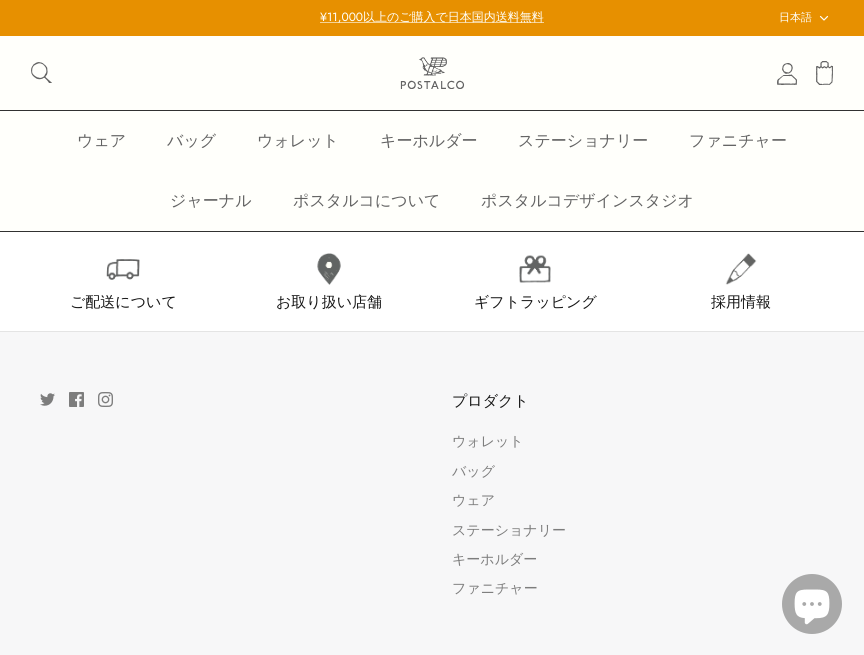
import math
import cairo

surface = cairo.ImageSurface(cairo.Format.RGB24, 864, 655)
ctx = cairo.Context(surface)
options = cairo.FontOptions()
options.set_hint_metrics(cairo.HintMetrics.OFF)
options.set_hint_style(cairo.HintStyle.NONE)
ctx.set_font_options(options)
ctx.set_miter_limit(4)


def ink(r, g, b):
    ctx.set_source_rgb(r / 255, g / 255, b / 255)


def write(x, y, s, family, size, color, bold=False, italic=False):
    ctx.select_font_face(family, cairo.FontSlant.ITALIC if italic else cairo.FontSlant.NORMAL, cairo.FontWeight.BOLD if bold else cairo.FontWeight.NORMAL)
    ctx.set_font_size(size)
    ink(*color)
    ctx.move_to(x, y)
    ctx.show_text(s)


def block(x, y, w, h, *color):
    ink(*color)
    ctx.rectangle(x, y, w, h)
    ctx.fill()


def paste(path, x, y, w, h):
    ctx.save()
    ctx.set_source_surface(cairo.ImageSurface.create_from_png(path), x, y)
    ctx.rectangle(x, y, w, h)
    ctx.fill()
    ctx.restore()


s1 = dict(family="Jost", size=12, color=(255, 255, 251))
s2 = dict(family="WenQuanYi Zen Hei Medium", size=12, color=(255, 255, 251))
s3 = dict(family="WenQuanYi Zen Hei Medium", size=11, color=(255, 255, 251))
s4 = dict(family="WenQuanYi Zen Hei Medium", size=16, color=(99, 99, 99))
s5 = dict(family="WenQuanYi Zen Hei Medium", size=15, color=(23, 23, 23))
s6 = dict(family="WenQuanYi Zen Hei Medium", size=14, color=(125, 125, 125))

ink(255, 255, 251)
ctx.paint()
block(0, 0, 864, 36, 231, 144, 0)
block(320, 22, 224, 1, 245, 211, 151)
write(320, 21, "¥11,000", **s1)
write(363, 21, "以上のご購入で日本国内送料無料", **s2)
write(779, 21, "日本語", **s3)
ctx.new_path()
ctx.move_to(820.5, 16.5)
ctx.line_to(824, 20)
ctx.line_to(827.5, 16.5)
ctx.set_line_width(1.2)
ctx.set_line_cap(cairo.LineCap.ROUND)
ctx.set_line_join(cairo.LineJoin.ROUND)
ctx.stroke()
block(0, 110, 864, 1, 49, 49, 49)
paste("pic1.png", 31, 62, 21, 21)
paste("pic2.png", 400, 57, 65, 32)
paste("pic3.png", 777, 63, 20, 22)
paste("pic4.png", 816, 61, 17, 24)
block(0, 231, 864, 1, 49, 49, 49)
write(77, 146, "ウェア", **s4)
write(167, 146, "バッグ", **s4)
write(257, 146, "ウォレット", **s4)
write(380, 146, "キーホルダー", **s4)
write(518, 146, "ステーショナリー", **s4)
write(689, 146, "ファニチャー", **s4)
write(170, 206, "ジャーナル", **s4)
write(293, 206, "ポスタルコについて", **s4)
write(481, 206, "ポスタルコデザインスタジオ", **s4)
block(0, 332, 864, 323, 247, 247, 248)
block(0, 232, 864, 99, 255, 255, 255)
paste("pic5.png", 106, 259, 34, 21)
write(70, 307, "ご配送について", **s5)
paste("pic6.png", 317, 253, 24, 32)
write(276, 307, "お取り扱い店舗", **s5)
paste("pic7.png", 519, 255, 32, 28)
write(474, 307, "ギフトラッピング", **s5)
paste("pic8.png", 725, 253, 32, 32)
write(711, 307, "採用情報", **s5)
block(0, 331, 864, 1, 228, 228, 228)
paste("pic9.png", 40, 393, 15, 13)
paste("pic10.png", 69, 392, 15, 15)
paste("pic11.png", 98, 392, 15, 15)
write(452, 406, "プロダクト", **s5)
write(452, 446, "ウォレット", **s6)
write(452, 476, "バッグ", **s6)
write(452, 505, "ウェア", **s6)
write(452, 535, "ステーショナリー", **s6)
write(452, 564, "キーホルダー", **s6)
write(452, 593, "ファニチャー", **s6)
ink(169, 169, 169)
ctx.new_path()
ctx.arc(812, 604, 30, 0, 2 * math.pi)
ctx.fill()
paste("pic12.png", 794, 589, 36, 36)
surface.write_to_png("screenshot.png")
